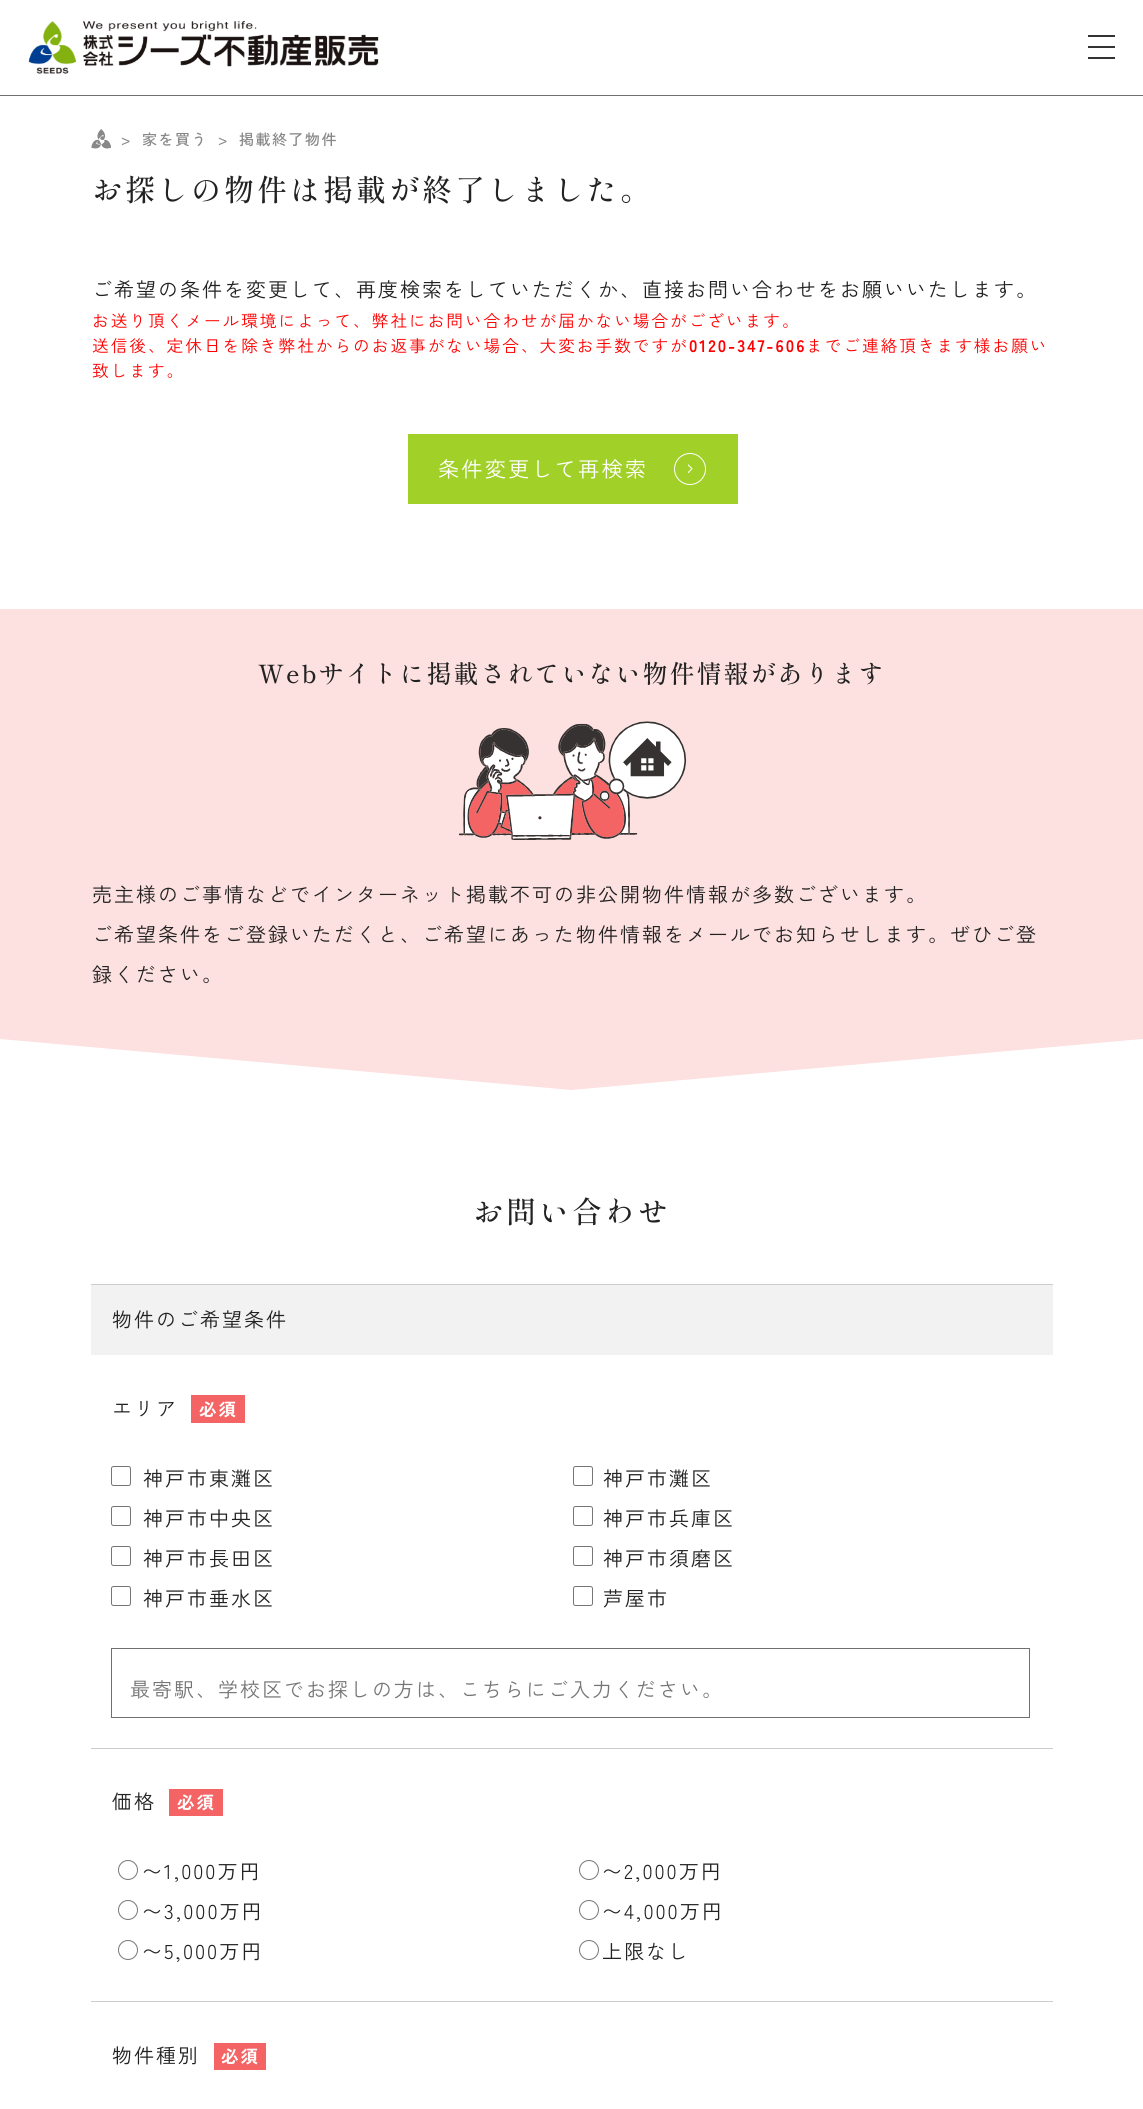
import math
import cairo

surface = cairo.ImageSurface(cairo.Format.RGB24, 1143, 2109)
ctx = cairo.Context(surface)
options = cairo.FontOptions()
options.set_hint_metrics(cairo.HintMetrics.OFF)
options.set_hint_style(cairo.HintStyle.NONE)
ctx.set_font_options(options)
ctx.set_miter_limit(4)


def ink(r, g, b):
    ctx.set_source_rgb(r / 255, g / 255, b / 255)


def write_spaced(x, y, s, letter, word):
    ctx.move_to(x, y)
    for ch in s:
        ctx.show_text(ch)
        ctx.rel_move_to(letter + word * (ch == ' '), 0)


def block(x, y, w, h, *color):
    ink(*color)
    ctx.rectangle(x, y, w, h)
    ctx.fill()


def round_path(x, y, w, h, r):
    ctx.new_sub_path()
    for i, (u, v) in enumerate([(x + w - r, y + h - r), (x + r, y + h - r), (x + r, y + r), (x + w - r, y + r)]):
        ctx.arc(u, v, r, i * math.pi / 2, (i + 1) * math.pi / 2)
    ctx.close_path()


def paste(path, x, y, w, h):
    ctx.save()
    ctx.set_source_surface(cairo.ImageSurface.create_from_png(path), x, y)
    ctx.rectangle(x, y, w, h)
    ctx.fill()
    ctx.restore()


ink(255, 255, 255)
ctx.paint()
block(0, 95, 1143, 1, 112, 112, 112)
paste("pic1.png", 28, 21, 351, 53)
block(1088, 35, 27, 2, 51, 51, 51)
block(1088, 46, 27, 2, 51, 51, 51)
block(1088, 57, 27, 2, 51, 51, 51)
paste("pic2.png", 91, 129, 20, 20)
ctx.select_font_face("Zen Kaku Gothic New Medium")
ctx.set_font_size(15)
ink(136, 136, 136)
write_spaced(121, 145, ">", 1.5, 0)
write_spaced(142, 145, "家を買う", 1.5, 0)
write_spaced(218, 145, ">", 1.5, 0)
write_spaced(239, 145, "掲載終了物件", 1.5, 0)
ctx.select_font_face("Shippori Mincho Medium")
ctx.set_font_size(30)
ink(34, 34, 34)
write_spaced(92, 201, "お探しの物件は掲載が終了しました。", 3, 0)
ctx.select_font_face("Zen Kaku Gothic New")
ctx.set_font_size(20)
write_spaced(92, 297, "ご希望の条件を変更して、再度検索をしていただくか、直接お問い合わせをお願いいたします。", 2, 0)
ctx.set_font_size(16.65)
ink(255, 0, 0)
write_spaced(92, 327, "お送り頂くメール環境によって、弊社にお問い合わせが届かない場合がございます。", 2, 0)
write_spaced(92, 352, "送信後、定休日を除き弊社からのお返事がない場合、大変お手数ですが", 2, 0)
ctx.select_font_face("Zen Kaku Gothic New", cairo.FontSlant.NORMAL, cairo.FontWeight.BOLD)
write_spaced(689, 352, "0120-347-606", 2, 0)
ctx.select_font_face("Zen Kaku Gothic New")
write_spaced(806, 352, "までご連絡頂きます様お願い", 2, 0)
write_spaced(92, 377, "致します。", 2, 0)
block(408, 434, 330, 70, 161, 208, 40)
ctx.set_font_size(21.25)
ink(255, 255, 255)
write_spaced(438, 477, "条件変更して再検索", 2.1, 0)
ctx.new_path()
ctx.arc(690, 469, 15.5, 0, 2 * math.pi)
ctx.set_line_width(1)
ctx.stroke()
paste("pic3.png", 688, 464, 5, 10)
block(0, 609, 1143, 430, 253, 224, 224)
ctx.select_font_face("Shippori Mincho Medium")
ctx.set_font_size(25)
ink(34, 34, 34)
write_spaced(258, 683, "Webサイトに掲載されていない物件情報があります", 2, 0)
paste("pic4.png", 459, 721, 228, 119)
ctx.select_font_face("Zen Kaku Gothic New")
ctx.set_font_size(20)
write_spaced(92, 902, "売主様のご事情などでインターネット掲載不可の非公開物件情報が多数ございます。", 2, 0)
write_spaced(92, 942, "ご希望条件をご登録いただくと、ご希望にあった物件情報をメールでお知らせします。ぜひご登", 2, 0)
write_spaced(92, 982, "録ください。", 2, 0)
ink(253, 224, 224)
ctx.new_path()
ctx.move_to(0, 1039)
ctx.line_to(1142, 1039)
ctx.line_to(571, 1090)
ctx.close_path()
ctx.fill()
ctx.select_font_face("Shippori Mincho Medium")
ctx.set_font_size(30)
ink(34, 34, 34)
write_spaced(473, 1223, "お問い合わせ", 3, 0)
block(91, 1285, 962, 70, 242, 242, 242)
block(91, 1284, 962, 1, 204, 204, 204)
ctx.select_font_face("Zen Kaku Gothic New")
ctx.set_font_size(20)
ink(34, 34, 34)
write_spaced(112, 1327, "物件のご希望条件", 2, 0)
block(91, 1748, 962, 1, 204, 204, 204)
ink(34, 34, 34)
write_spaced(112, 1416, "エリア", 2, 0)
block(191, 1395, 54, 28, 244, 100, 100)
ctx.select_font_face("Zen Kaku Gothic New", cairo.FontSlant.NORMAL, cairo.FontWeight.BOLD)
ctx.set_font_size(17.5)
ink(255, 255, 255)
write_spaced(199, 1416, "必須", 2, 0)
round_path(111.5, 1466.5, 19, 19, 2)
ink(118, 118, 118)
ctx.stroke()
ctx.select_font_face("Zen Kaku Gothic New")
ctx.set_font_size(20)
ink(34, 34, 34)
write_spaced(143, 1486, "神戸市東灘区", 2, 0)
round_path(573.5, 1466.5, 19, 19, 2)
ink(118, 118, 118)
ctx.stroke()
ink(34, 34, 34)
write_spaced(603, 1486, "神戸市灘区", 2, 0)
round_path(111.5, 1506.5, 19, 19, 2)
ink(118, 118, 118)
ctx.stroke()
ink(34, 34, 34)
write_spaced(143, 1526, "神戸市中央区", 2, 0)
round_path(573.5, 1506.5, 19, 19, 2)
ink(118, 118, 118)
ctx.stroke()
ink(34, 34, 34)
write_spaced(603, 1526, "神戸市兵庫区", 2, 0)
round_path(111.5, 1546.5, 19, 19, 2)
ink(118, 118, 118)
ctx.stroke()
ink(34, 34, 34)
write_spaced(143, 1566, "神戸市長田区", 2, 0)
round_path(573.5, 1546.5, 19, 19, 2)
ink(118, 118, 118)
ctx.stroke()
ink(34, 34, 34)
write_spaced(603, 1566, "神戸市須磨区", 2, 0)
round_path(111.5, 1586.5, 19, 19, 2)
ink(118, 118, 118)
ctx.stroke()
ink(34, 34, 34)
write_spaced(143, 1606, "神戸市垂水区", 2, 0)
round_path(573.5, 1586.5, 19, 19, 2)
ink(118, 118, 118)
ctx.stroke()
ink(34, 34, 34)
write_spaced(603, 1606, "芦屋市", 2, 0)
ctx.rectangle(111.5, 1648.5, 918, 69)
ink(112, 112, 112)
ctx.stroke()
ink(117, 117, 117)
write_spaced(130, 1697, "最寄駅、学校区でお探しの方は、こちらにご入力ください。", 2, 0)
block(91, 2001, 962, 1, 204, 204, 204)
ink(34, 34, 34)
write_spaced(112, 1809, "価格", 2, 0)
block(169, 1789, 54, 27, 244, 100, 100)
ctx.select_font_face("Zen Kaku Gothic New", cairo.FontSlant.NORMAL, cairo.FontWeight.BOLD)
ctx.set_font_size(17.5)
ink(255, 255, 255)
write_spaced(177, 1809, "必須", 2, 0)
ctx.new_path()
ctx.arc(128, 1870, 9.5, 0, 2 * math.pi)
ink(118, 118, 118)
ctx.stroke()
ctx.select_font_face("Zen Kaku Gothic New")
ctx.set_font_size(20)
ink(34, 34, 34)
write_spaced(142, 1879, "〜1,000万円", 2, 0)
ctx.new_path()
ctx.arc(589, 1870, 9.5, 0, 2 * math.pi)
ink(118, 118, 118)
ctx.stroke()
ink(34, 34, 34)
write_spaced(602, 1879, "〜2,000万円", 2, 0)
ctx.new_path()
ctx.arc(128, 1910, 9.5, 0, 2 * math.pi)
ink(118, 118, 118)
ctx.stroke()
ink(34, 34, 34)
write_spaced(142, 1919, "〜3,000万円", 2, 0)
ctx.new_path()
ctx.arc(589, 1910, 9.5, 0, 2 * math.pi)
ink(118, 118, 118)
ctx.stroke()
ink(34, 34, 34)
write_spaced(602, 1919, "〜4,000万円", 2, 0)
ctx.new_path()
ctx.arc(128, 1950, 9.5, 0, 2 * math.pi)
ink(118, 118, 118)
ctx.stroke()
ink(34, 34, 34)
write_spaced(142, 1959, "〜5,000万円", 2, 0)
ctx.new_path()
ctx.arc(589, 1950, 9.5, 0, 2 * math.pi)
ink(118, 118, 118)
ctx.stroke()
ink(34, 34, 34)
write_spaced(602, 1959, "上限なし", 2, 0)
write_spaced(112, 2063, "物件種別", 2, 0)
block(214, 2043, 52, 27, 244, 100, 100)
ctx.select_font_face("Zen Kaku Gothic New", cairo.FontSlant.NORMAL, cairo.FontWeight.BOLD)
ctx.set_font_size(17.5)
ink(255, 255, 255)
write_spaced(221, 2063, "必須", 2, 0)
surface.write_to_png("screenshot.png")
